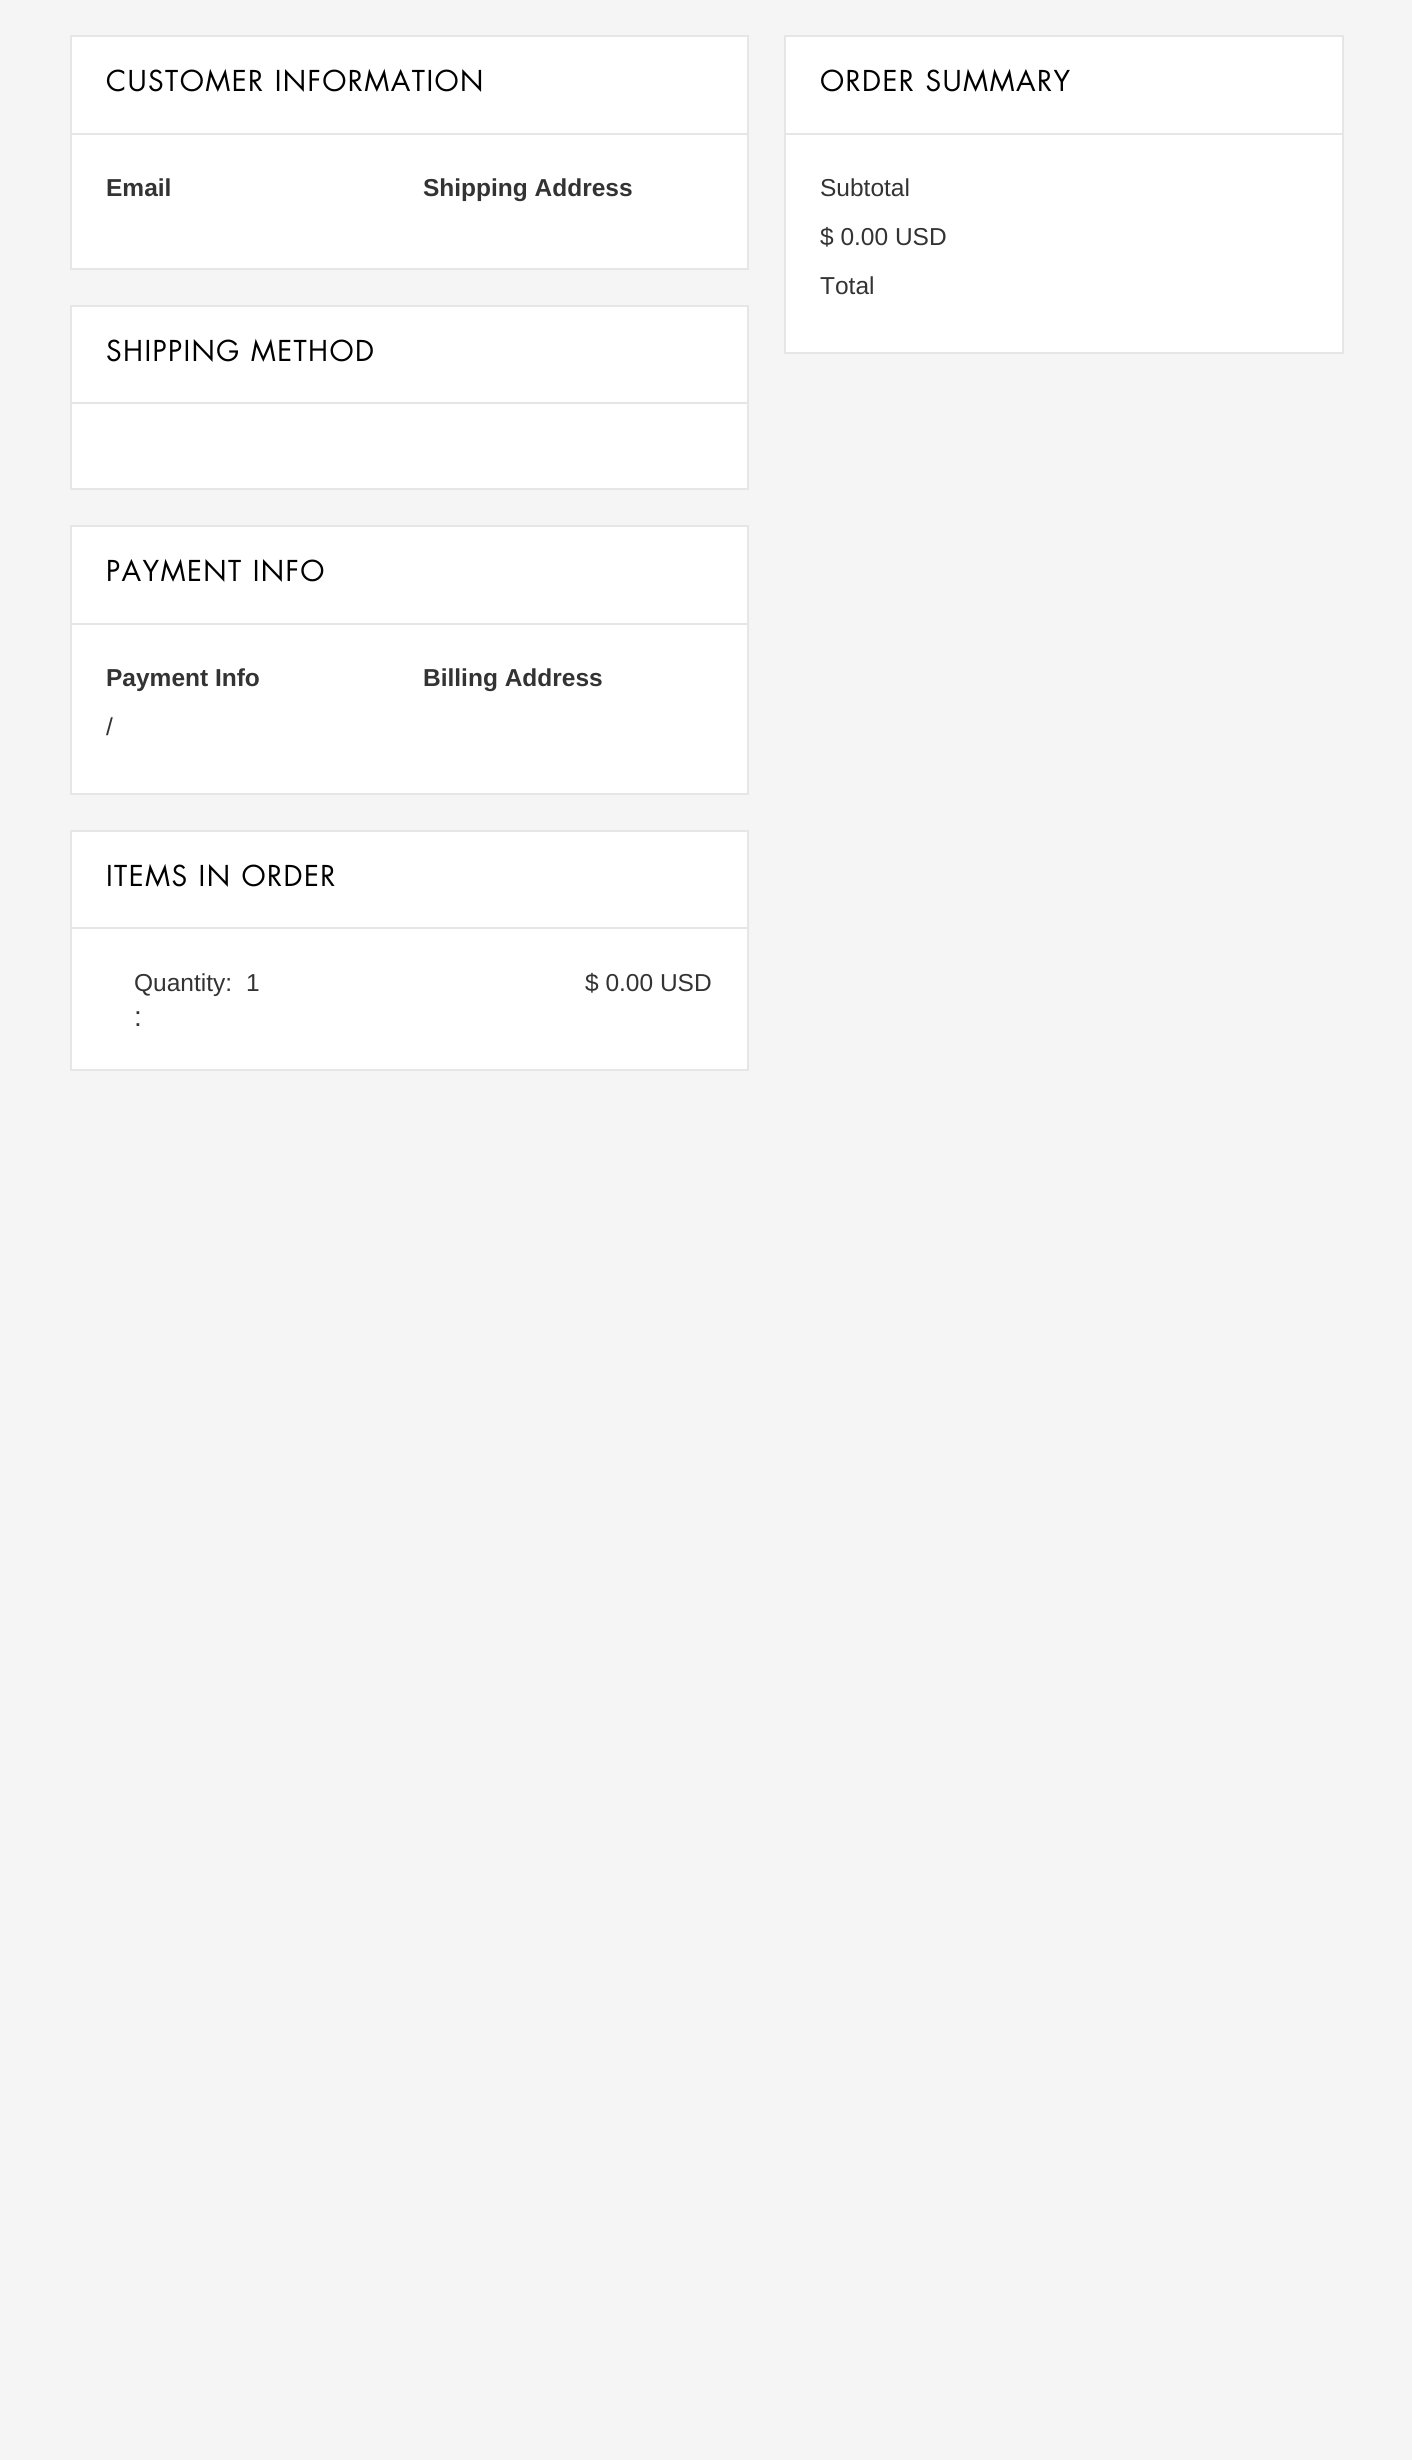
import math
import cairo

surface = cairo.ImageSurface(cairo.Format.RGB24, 1412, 2460)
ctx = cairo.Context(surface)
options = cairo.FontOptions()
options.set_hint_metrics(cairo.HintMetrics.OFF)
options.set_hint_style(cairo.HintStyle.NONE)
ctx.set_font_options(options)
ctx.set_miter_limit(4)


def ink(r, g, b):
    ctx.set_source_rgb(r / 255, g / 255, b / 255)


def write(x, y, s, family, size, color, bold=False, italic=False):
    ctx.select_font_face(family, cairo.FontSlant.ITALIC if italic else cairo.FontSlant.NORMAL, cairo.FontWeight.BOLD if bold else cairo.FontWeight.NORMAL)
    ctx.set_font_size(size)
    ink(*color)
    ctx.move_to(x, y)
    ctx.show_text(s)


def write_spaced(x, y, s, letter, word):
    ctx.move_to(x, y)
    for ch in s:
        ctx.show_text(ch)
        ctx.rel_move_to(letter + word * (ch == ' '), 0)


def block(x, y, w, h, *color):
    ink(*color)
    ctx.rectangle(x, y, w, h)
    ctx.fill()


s1 = dict(family="Liberation Sans", size=24.5, color=(51, 51, 51), bold=True)
s2 = dict(family="Liberation Sans", size=24.5, color=(51, 51, 51))
s3 = dict(family="Liberation Sans", size=28, color=(51, 51, 51))

ink(245, 245, 245)
ctx.paint()
ink(255, 255, 255)
ctx.rectangle(71, 36, 677, 98)
ctx.fill_preserve()
ink(230, 230, 230)
ctx.stroke()
ctx.select_font_face("Futura")
ctx.set_font_size(28)
ink(0, 0, 0)
write_spaced(106, 91, "CUSTOMER INFORMATION", 1.4, 0)
block(72, 135, 675, 133, 255, 255, 255)
block(747, 135, 2, 135, 230, 230, 230)
block(70, 268, 679, 2, 230, 230, 230)
block(70, 135, 2, 135, 230, 230, 230)
write(106, 196, "Email", **s1)
write(423, 196, "Shipping Address", **s1)
ink(255, 255, 255)
ctx.rectangle(71, 306, 677, 97)
ctx.fill_preserve()
ink(230, 230, 230)
ctx.stroke()
ctx.select_font_face("Futura")
ctx.set_font_size(28)
ink(0, 0, 0)
write_spaced(106, 361, "SHIPPING METHOD", 1.4, 0)
block(72, 404, 675, 84, 255, 255, 255)
block(747, 404, 2, 86, 230, 230, 230)
block(70, 488, 679, 2, 230, 230, 230)
block(70, 404, 2, 86, 230, 230, 230)
ink(255, 255, 255)
ctx.rectangle(71, 526, 677, 98)
ctx.fill_preserve()
ink(230, 230, 230)
ctx.stroke()
ink(0, 0, 0)
write_spaced(106, 581, "PAYMENT INFO", 1.4, 0)
block(72, 625, 675, 168, 255, 255, 255)
block(747, 625, 2, 170, 230, 230, 230)
block(70, 793, 679, 2, 230, 230, 230)
block(70, 625, 2, 170, 230, 230, 230)
write(106, 686, "Payment Info", **s1)
write(106, 735, "/", **s2)
write(423, 686, "Billing Address", **s1)
ink(255, 255, 255)
ctx.rectangle(71, 831, 677, 97)
ctx.fill_preserve()
ink(230, 230, 230)
ctx.stroke()
ctx.select_font_face("Futura")
ctx.set_font_size(28)
ink(0, 0, 0)
write_spaced(106, 886, "ITEMS IN ORDER", 1.4, 0)
block(72, 929, 675, 140, 255, 255, 255)
block(747, 929, 2, 142, 230, 230, 230)
block(70, 1069, 679, 2, 230, 230, 230)
block(70, 929, 2, 142, 230, 230, 230)
write(134, 991, "Quantity:", **s2)
write(246, 991, "1", **s2)
write(134, 1026, ":", **s3)
write(585, 991, "$ 0.00 USD", **s2)
ink(255, 255, 255)
ctx.rectangle(785, 36, 558, 98)
ctx.fill_preserve()
ink(230, 230, 230)
ctx.stroke()
ctx.select_font_face("Futura")
ctx.set_font_size(28)
ink(0, 0, 0)
write_spaced(820, 91, "ORDER SUMMARY", 1.4, 0)
block(786, 135, 556, 217, 255, 255, 255)
block(1342, 135, 2, 219, 230, 230, 230)
block(784, 352, 560, 2, 230, 230, 230)
block(784, 135, 2, 219, 230, 230, 230)
write(820, 196, "Subtotal", **s2)
write(820, 245, "$ 0.00 USD", **s2)
write(820, 294, "Total", **s2)
surface.write_to_png("screenshot.png")
